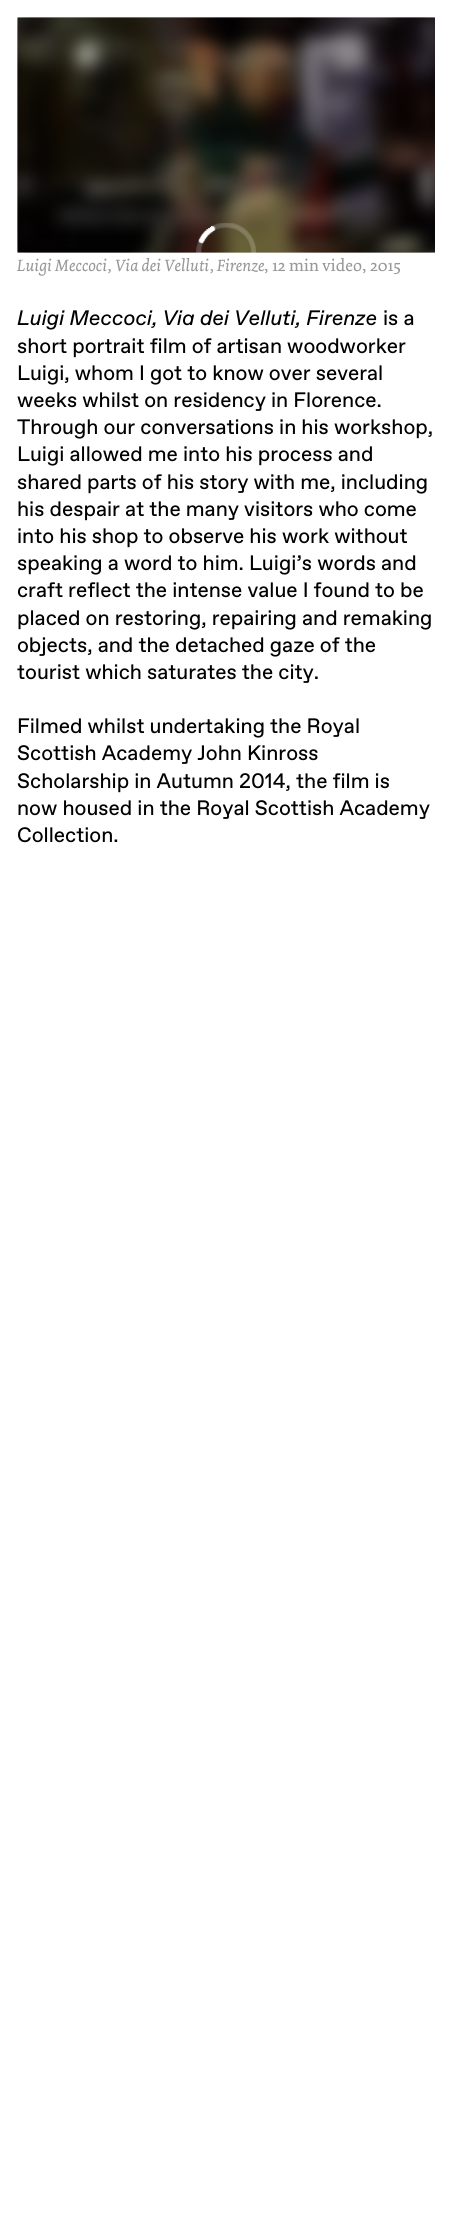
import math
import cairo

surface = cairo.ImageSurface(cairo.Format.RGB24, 452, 2227)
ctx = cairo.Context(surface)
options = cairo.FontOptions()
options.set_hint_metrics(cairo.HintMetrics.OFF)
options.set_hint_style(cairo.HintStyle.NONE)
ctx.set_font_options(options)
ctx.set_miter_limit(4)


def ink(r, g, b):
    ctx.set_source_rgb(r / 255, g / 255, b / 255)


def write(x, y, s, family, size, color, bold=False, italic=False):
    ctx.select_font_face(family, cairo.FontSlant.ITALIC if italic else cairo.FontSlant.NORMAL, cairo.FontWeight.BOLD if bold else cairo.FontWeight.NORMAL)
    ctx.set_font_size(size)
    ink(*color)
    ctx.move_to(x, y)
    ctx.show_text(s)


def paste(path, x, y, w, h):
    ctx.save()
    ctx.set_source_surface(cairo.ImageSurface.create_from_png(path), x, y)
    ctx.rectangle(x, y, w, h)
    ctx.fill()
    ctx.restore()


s1 = dict(family="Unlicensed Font", size=17.25, color=(152, 152, 152), italic=True)
s2 = dict(family="Unlicensed Font", size=17.25, color=(152, 152, 152))
s3 = dict(family="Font", size=20.9, color=(0, 0, 0), italic=True)
s4 = dict(family="Font", size=20.9, color=(0, 0, 0))

ink(255, 255, 255)
ctx.paint()
paste("pic1.png", 17, 17, 418, 236)
write(17, 271, "Luigi Meccoci, Via dei Velluti, Firenze", **s1)
write(264, 271, ", 12 min video, 2015", **s2)
write(17, 325, "Luigi Meccoci, Via dei Velluti, Firenze", **s3)
write(383, 325, "is a", **s4)
write(17, 353, "short portrait film of artisan woodworker", **s4)
write(17, 380, "Luigi, whom I got to know over several", **s4)
write(17, 407, "weeks whilst on residency in Florence.", **s4)
write(17, 434, "Through our conversations in his workshop,", **s4)
write(17, 461, "Luigi allowed me into his process and", **s4)
write(17, 489, "shared parts of his story with me, including", **s4)
write(17, 516, "his despair at the many visitors who come", **s4)
write(17, 543, "into his shop to observe his work without", **s4)
write(17, 570, "speaking a word to him. Luigi’s words and", **s4)
write(17, 597, "craft reflect the intense value I found to be", **s4)
write(17, 625, "placed on restoring, repairing and remaking", **s4)
write(17, 652, "objects, and the detached gaze of the", **s4)
write(17, 679, "tourist which saturates the city.", **s4)
write(17, 733, "Filmed whilst undertaking the Royal", **s4)
write(17, 760, "Scottish Academy John Kinross", **s4)
write(17, 788, "Scholarship in Autumn 2014, the film is", **s4)
write(17, 815, "now housed in the Royal Scottish Academy", **s4)
write(17, 842, "Collection.", **s4)
surface.write_to_png("screenshot.png")
